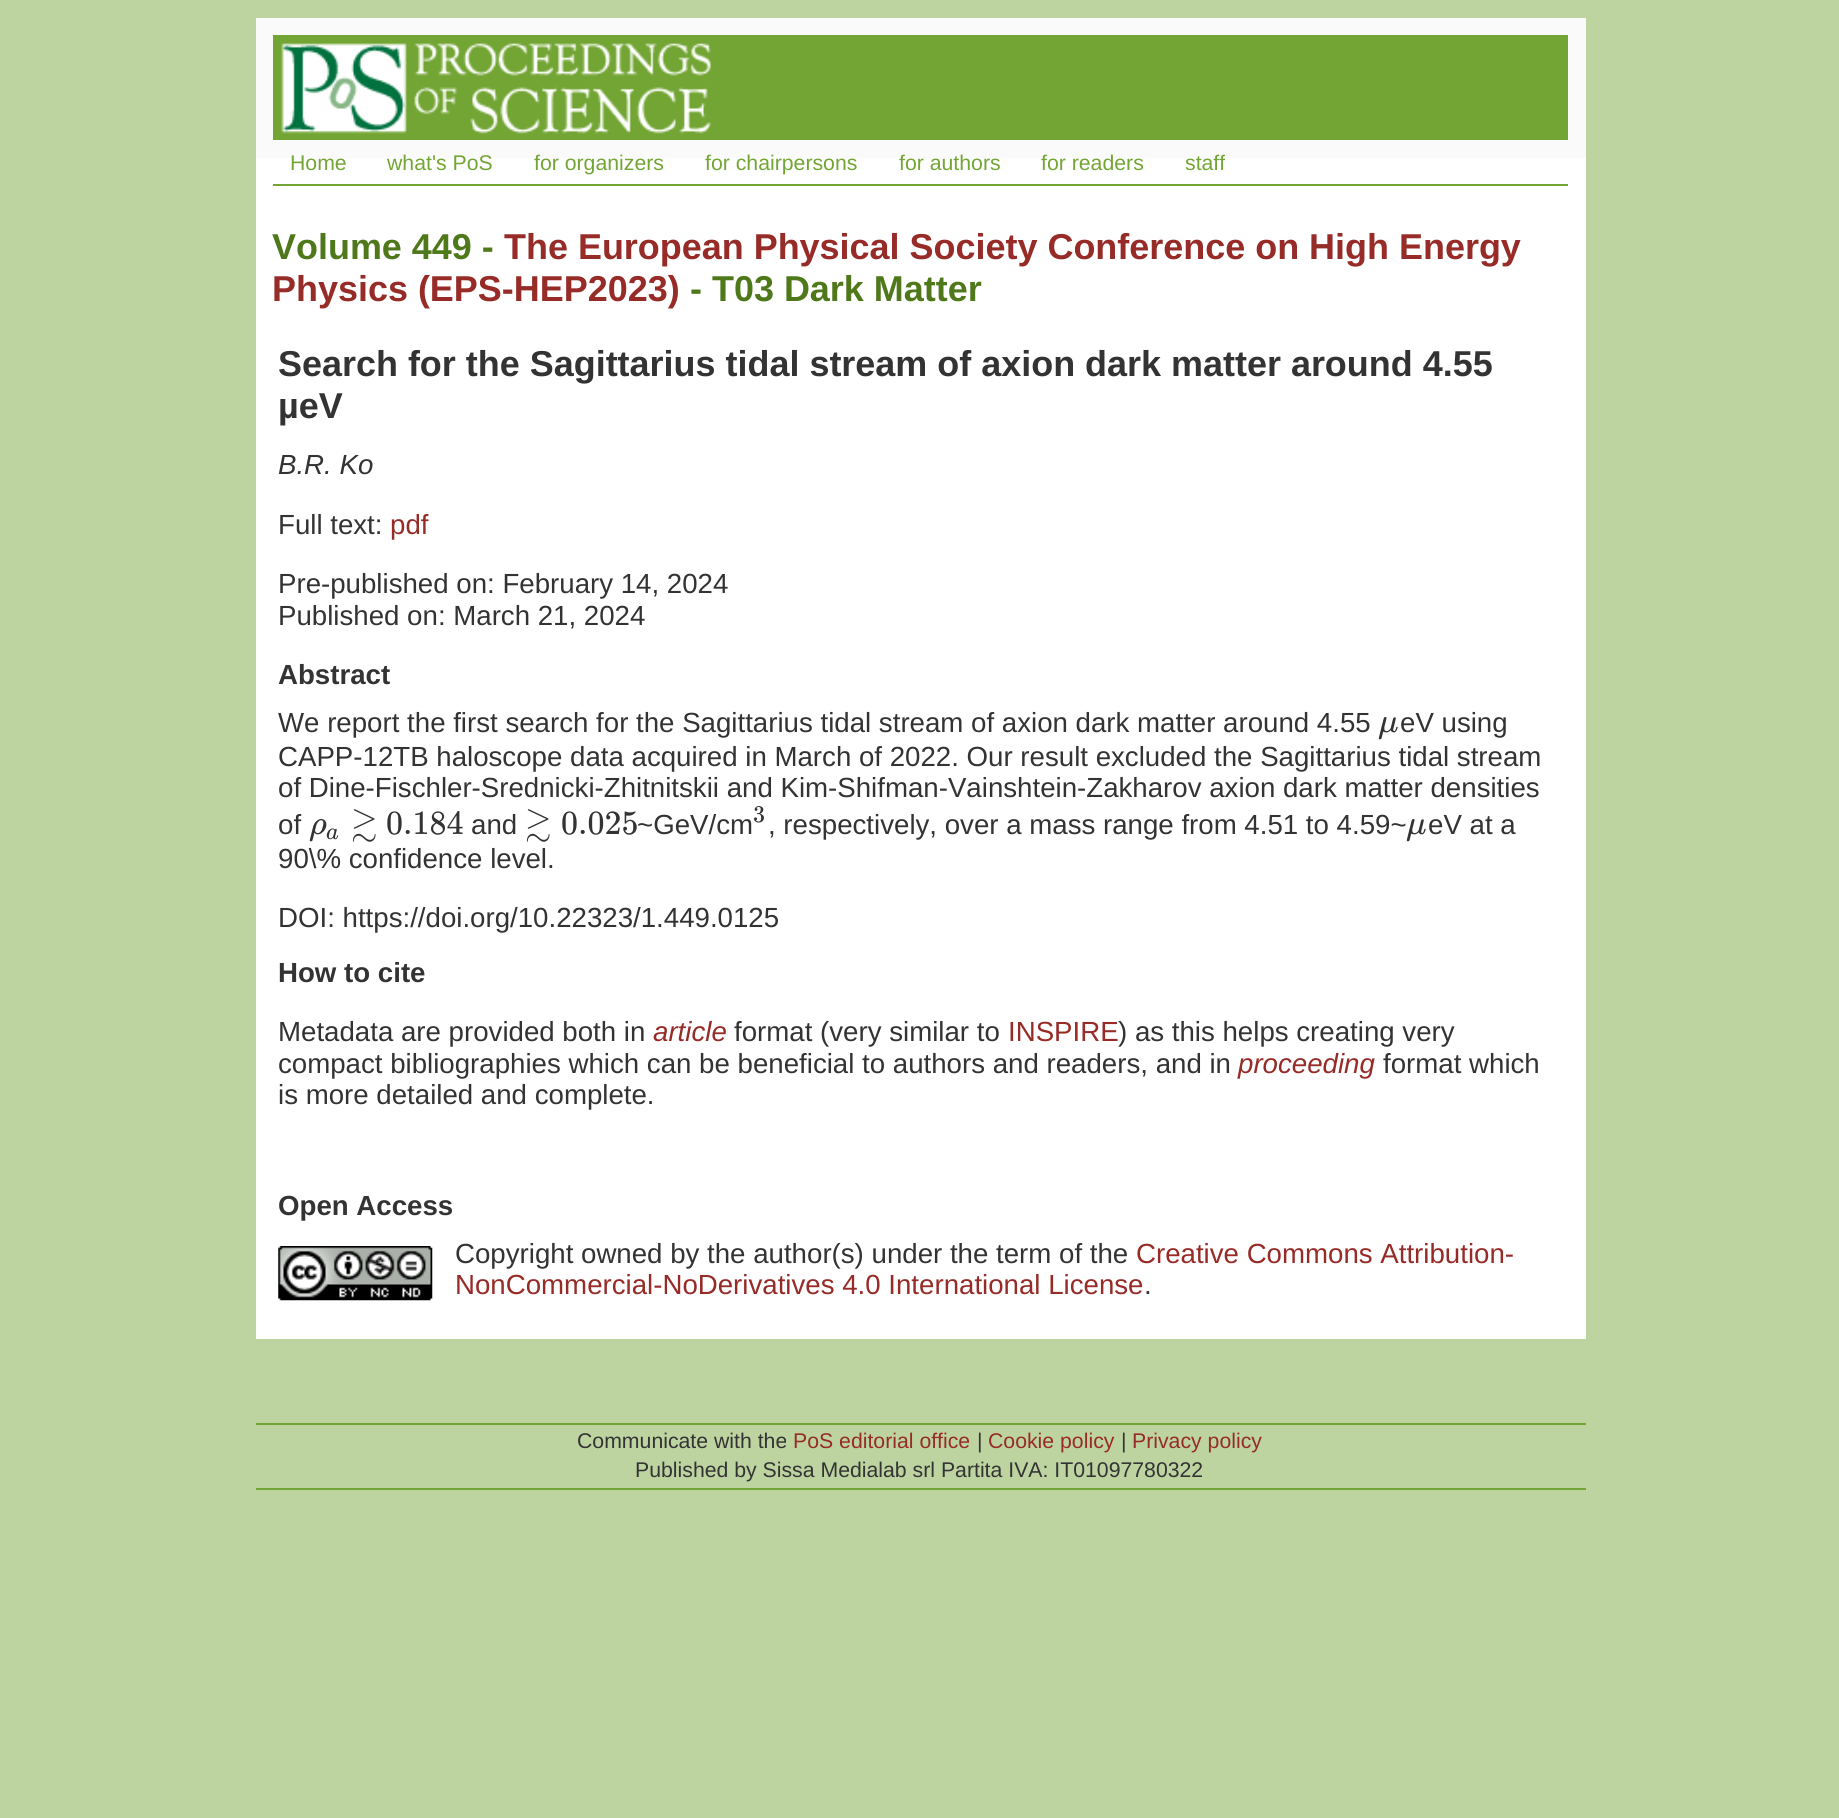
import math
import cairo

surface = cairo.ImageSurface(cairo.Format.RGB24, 1839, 1818)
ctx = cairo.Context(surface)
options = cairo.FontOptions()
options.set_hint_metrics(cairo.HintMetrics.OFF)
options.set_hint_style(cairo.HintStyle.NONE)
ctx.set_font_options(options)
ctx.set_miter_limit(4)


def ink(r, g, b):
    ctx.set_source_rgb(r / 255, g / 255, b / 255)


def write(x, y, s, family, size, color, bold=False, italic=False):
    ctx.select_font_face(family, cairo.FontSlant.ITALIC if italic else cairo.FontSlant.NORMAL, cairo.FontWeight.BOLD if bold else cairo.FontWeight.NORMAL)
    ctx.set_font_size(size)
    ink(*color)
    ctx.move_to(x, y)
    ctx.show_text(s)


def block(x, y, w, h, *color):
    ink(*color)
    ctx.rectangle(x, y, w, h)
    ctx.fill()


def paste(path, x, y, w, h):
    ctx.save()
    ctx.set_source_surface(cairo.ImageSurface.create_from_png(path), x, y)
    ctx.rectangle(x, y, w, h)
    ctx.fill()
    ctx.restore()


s1 = dict(family="Liberation Sans", size=21.25, color=(115, 165, 52))
s2 = dict(family="Liberation Sans", size=35.95, color=(78, 120, 26), bold=True)
s3 = dict(family="Liberation Sans", size=35.95, color=(150, 43, 39), bold=True)
s4 = dict(family="Liberation Sans", size=35.95, color=(51, 51, 51), bold=True)
s5 = dict(family="Liberation Sans", size=27.65, color=(51, 51, 51), italic=True)
s6 = dict(family="Liberation Sans", size=27.65, color=(51, 51, 51))
s7 = dict(family="Liberation Sans", size=27.65, color=(150, 43, 39))
s8 = dict(family="Liberation Sans", size=27.65, color=(51, 51, 51), bold=True)
s9 = dict(family="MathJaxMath", size=34, color=(51, 51, 51), italic=True)
s10 = dict(family="MathJaxMath", size=24, color=(51, 51, 51), italic=True)
s11 = dict(family="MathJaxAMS", size=34, color=(51, 51, 51))
s12 = dict(family="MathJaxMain", size=34, color=(51, 51, 51))
s13 = dict(family="MathJaxMain", size=24, color=(51, 51, 51))
s14 = dict(family="Liberation Sans", size=27.65, color=(150, 43, 39), italic=True)
s15 = dict(family="Liberation Sans", size=21.25, color=(51, 51, 51))
s16 = dict(family="Liberation Sans", size=21.25, color=(150, 43, 39))

ink(189, 212, 161)
ctx.paint()
block(256, 18, 1330, 140, 250, 250, 250)
block(273, 35, 1295, 105, 115, 165, 52)
paste("pic1.png", 281, 43, 430, 91)
block(256, 158, 1330, 1181, 255, 255, 255)
block(273, 184, 1295, 2, 115, 165, 52)
write(290, 170, "Home", **s1)
write(387, 170, "what's PoS", **s1)
write(534, 170, "for organizers", **s1)
write(705, 170, "for chairpersons", **s1)
write(899, 170, "for authors", **s1)
write(1041, 170, "for readers", **s1)
write(1185, 170, "staff", **s1)
write(272, 259, "Volume 449 -", **s2)
write(504, 259, "The European Physical Society Conference on High Energy", **s3)
write(272, 301, "Physics (EPS-HEP2023)", **s3)
write(690, 301, "- T03 Dark Matter", **s2)
write(278, 376, "Search for the Sagittarius tidal stream of axion dark matter around 4.55", **s4)
write(278, 418, "µeV", **s4)
write(278, 474, "B.R. Ko", **s5)
write(278, 534, "Full text:", **s6)
write(390, 534, "pdf", **s7)
write(278, 593, "Pre-published on: February 14, 2024", **s6)
write(278, 625, "Published on: March 21, 2024", **s6)
write(278, 684, "Abstract", **s8)
write(278, 732, "We report the first search for the Sagittarius tidal stream of axion dark matter around 4.55", **s6)
write(1378, 732, "μ", **s9)
write(1400, 732, "eV using", **s6)
write(278, 766, "CAPP-12TB haloscope data acquired in March of 2022. Our result excluded the Sagittarius tidal stream", **s6)
write(278, 797, "of Dine-Fischler-Srednicki-Zhitnitskii and Kim-Shifman-Vainshtein-Zakharov axion dark matter densities", **s6)
write(278, 834, "of", **s6)
write(309, 834, "ρ", **s9)
write(326, 839, "a", **s10)
write(351, 834, "≳", **s11)
write(386, 834, "0.184", **s12)
write(471, 834, "and", **s6)
write(525, 834, "≳", **s11)
write(561, 834, "0.025", **s12)
write(637, 834, "~GeV/cm", **s6)
write(753, 822, "3", **s13)
write(768, 834, ", respectively, over a mass range from 4.51 to 4.59~", **s6)
write(1406, 834, "μ", **s9)
write(1428, 834, "eV at a", **s6)
write(278, 868, "90\\% confidence level.", **s6)
write(278, 927, "DOI: https://doi.org/10.22323/1.449.0125", **s6)
write(278, 982, "How to cite", **s8)
write(278, 1041, "Metadata are provided both in", **s6)
write(653, 1041, "article", **s14)
write(734, 1041, "format (very similar to", **s6)
write(1008, 1041, "INSPIRE", **s7)
write(1118, 1041, ") as this helps creating very", **s6)
write(278, 1073, "compact bibliographies which can be beneficial to authors and readers, and in", **s6)
write(1238, 1073, "proceeding", **s14)
write(1383, 1073, "format which", **s6)
write(278, 1104, "is more detailed and complete.", **s6)
write(278, 1215, "Open Access", **s8)
paste("pic2.png", 278, 1246, 155, 55)
write(455, 1263, "Copyright owned by the author(s) under the term of the", **s6)
write(1136, 1263, "Creative Commons Attribution-", **s7)
write(455, 1294, "NonCommercial-NoDerivatives 4.0 International License", **s7)
write(1144, 1294, ".", **s6)
block(256, 1423, 1330, 2, 115, 165, 52)
block(256, 1488, 1330, 2, 115, 165, 52)
write(577, 1448, "Communicate with the", **s15)
write(793, 1448, "PoS editorial office", **s16)
write(977, 1448, "|", **s15)
write(988, 1448, "Cookie policy", **s16)
write(1121, 1448, "|", **s15)
write(1132, 1448, "Privacy policy", **s16)
write(635, 1477, "Published by Sissa Medialab srl Partita IVA: IT01097780322", **s15)
surface.write_to_png("screenshot.png")
